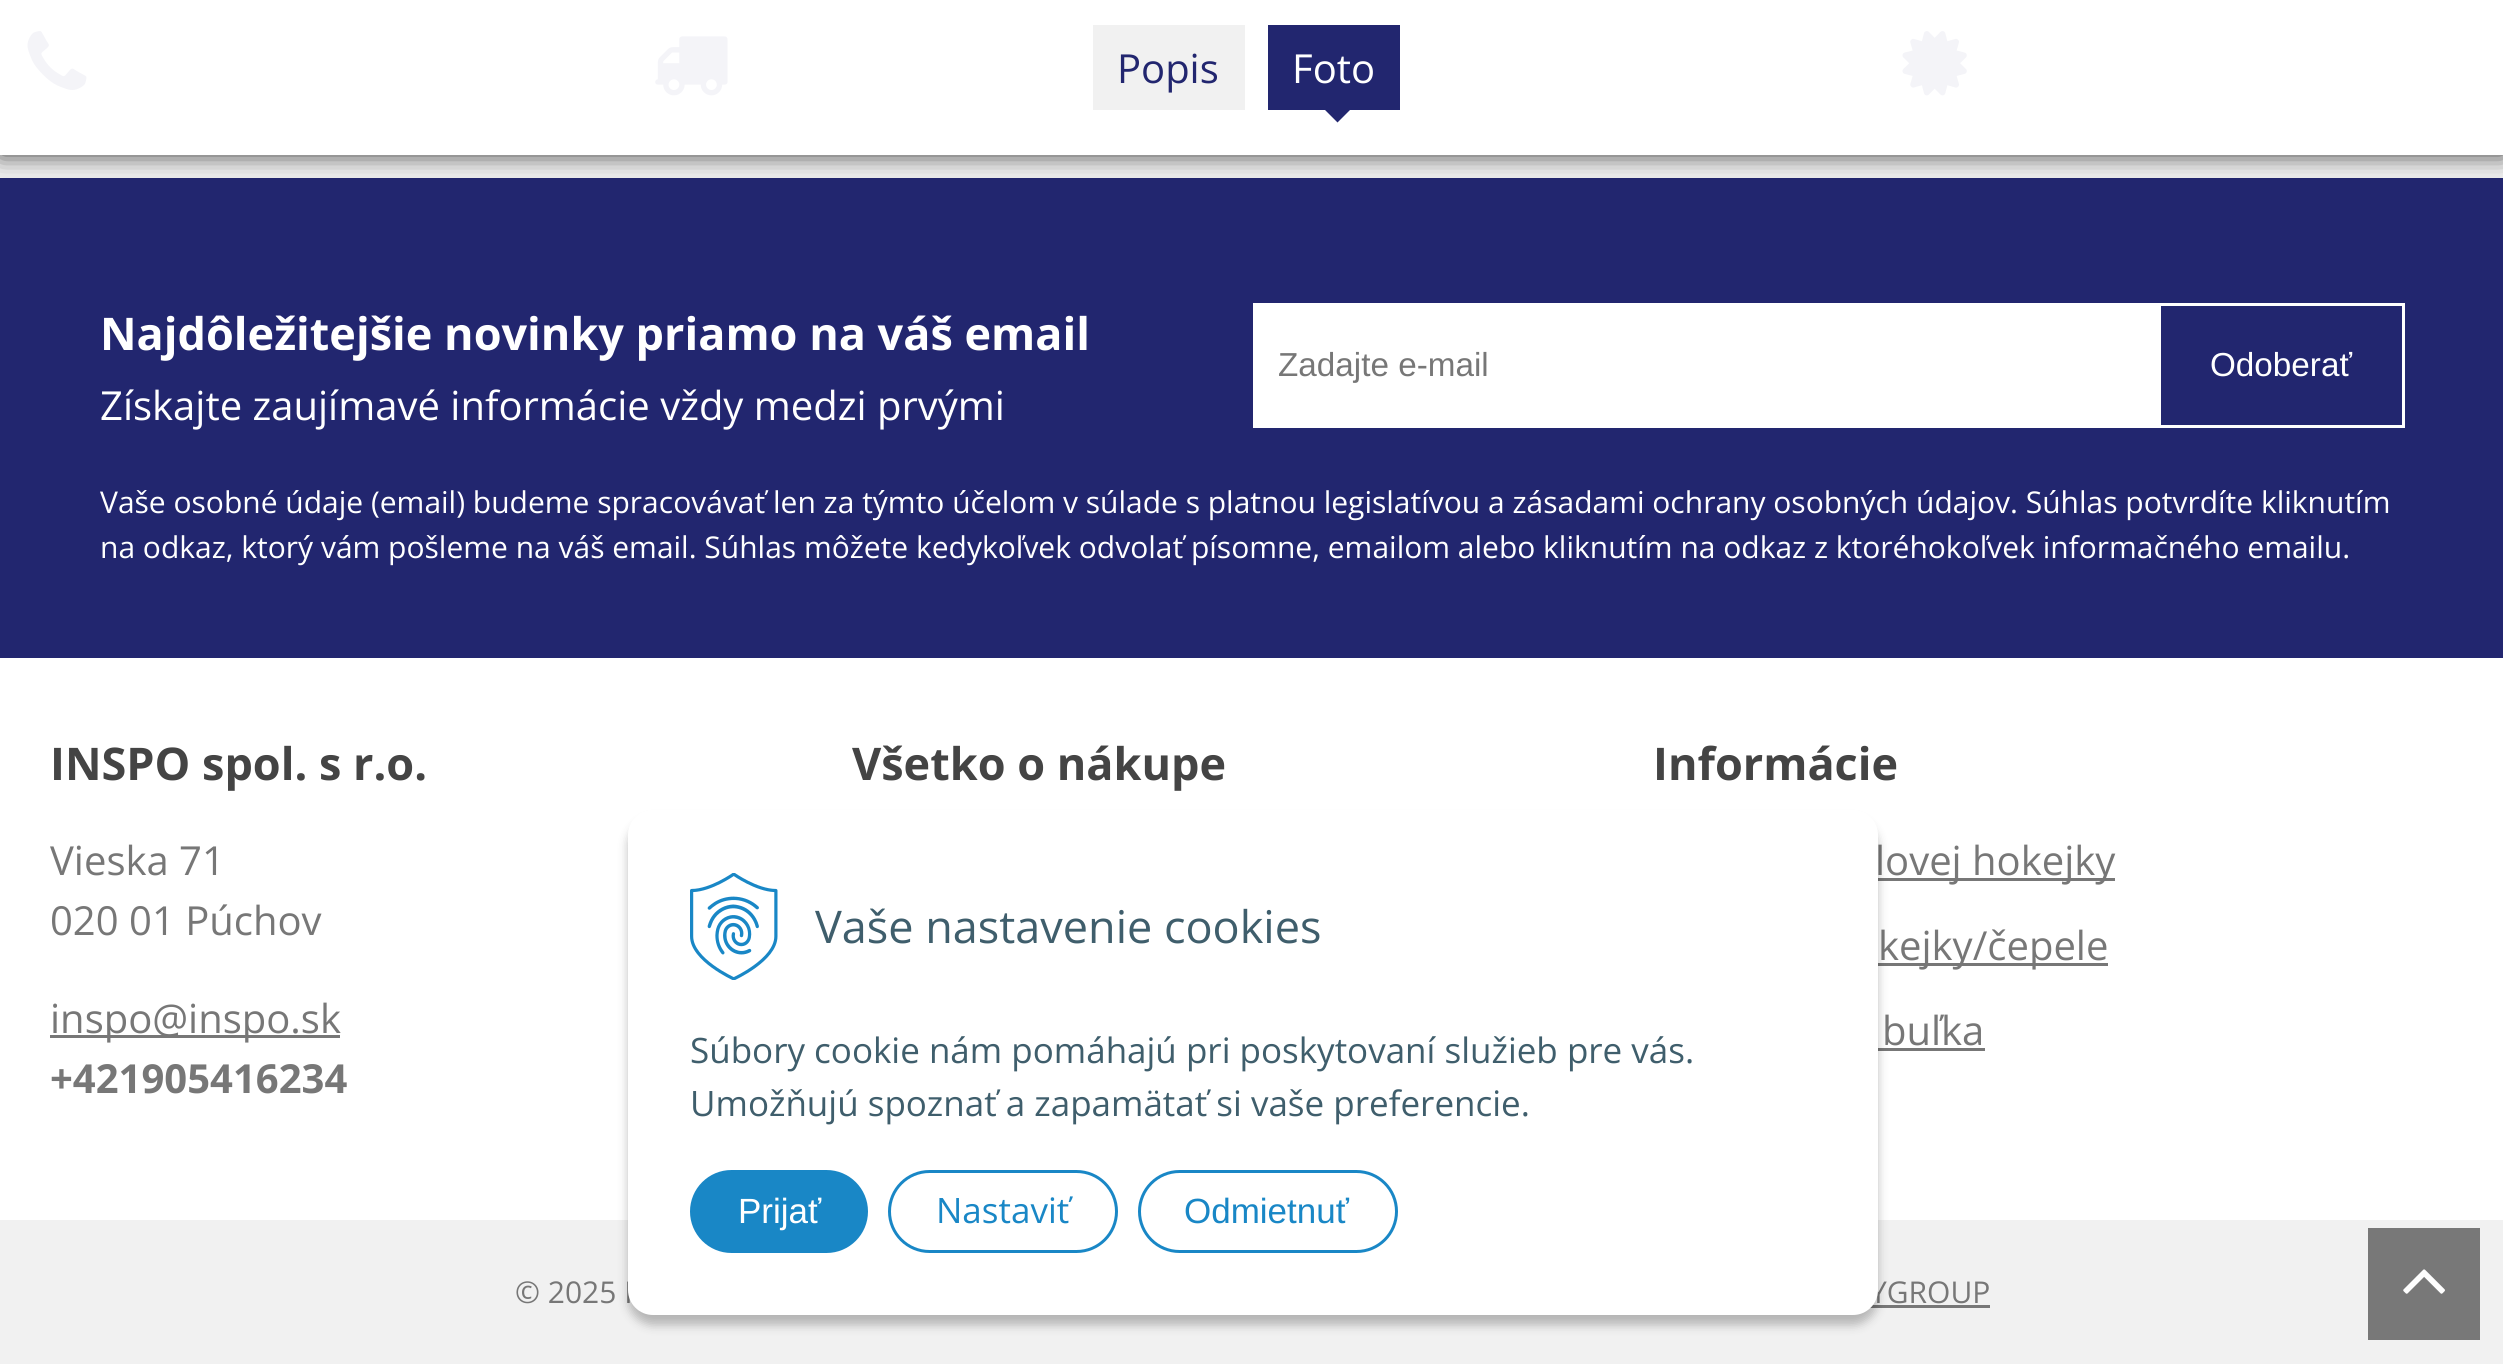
import math
import cairo

surface = cairo.ImageSurface(cairo.Format.RGB24, 2503, 1364)
ctx = cairo.Context(surface)
options = cairo.FontOptions()
options.set_hint_metrics(cairo.HintMetrics.OFF)
options.set_hint_style(cairo.HintStyle.NONE)
ctx.set_font_options(options)
ctx.set_miter_limit(4)


def ink(r, g, b):
    ctx.set_source_rgb(r / 255, g / 255, b / 255)


def write(x, y, s, family, size, color, bold=False, italic=False):
    ctx.select_font_face(family, cairo.FontSlant.ITALIC if italic else cairo.FontSlant.NORMAL, cairo.FontWeight.BOLD if bold else cairo.FontWeight.NORMAL)
    ctx.set_font_size(size)
    ink(*color)
    ctx.move_to(x, y)
    ctx.show_text(s)


def block(x, y, w, h, *color):
    ink(*color)
    ctx.rectangle(x, y, w, h)
    ctx.fill()


def round_path(x, y, w, h, r):
    ctx.new_sub_path()
    for i, (u, v) in enumerate([(x + w - r, y + h - r), (x + r, y + h - r), (x + r, y + r), (x + w - r, y + r)]):
        ctx.arc(u, v, r, i * math.pi / 2, (i + 1) * math.pi / 2)
    ctx.close_path()


def blur_box(x, y, w, h, r, blur, alpha):
    ctx.push_group_with_content(cairo.Content.ALPHA)
    ctx.set_operator(cairo.Operator.SOURCE)
    for i in range(15, -16, -2):
        e = blur * i / 6
        if min(w, h) + 2 * e > 0:
            ctx.set_source_rgba(0, 0, 0, alpha * math.erfc((i - 1) / 8.5) / 2)
            round_path(x - e, y - e, w + 2 * e, h + 2 * e, max(0, min(r + e + blur * .6, min(w, h) / 2 + e)))
            ctx.fill()
    ctx.mask(ctx.pop_group())


def paste(path, x, y, w, h):
    ctx.save()
    ctx.set_source_surface(cairo.ImageSurface.create_from_png(path), x, y)
    ctx.rectangle(x, y, w, h)
    ctx.fill()
    ctx.restore()


s1 = dict(family="Open Sans", size=40, color=(34, 38, 111))
s2 = dict(family="Open Sans", size=40, color=(255, 255, 255))
s3 = dict(family="Open Sans", size=45, color=(255, 255, 255), bold=True)
s4 = dict(family="Liberation Sans", size=33.25, color=(119, 119, 119))
s5 = dict(family="Liberation Sans", size=33.25, color=(255, 255, 255))
s6 = dict(family="Open Sans", size=30, color=(255, 255, 255))
s7 = dict(family="Open Sans", size=45, color=(68, 68, 68), bold=True)
s8 = dict(family="Open Sans", size=40, color=(119, 119, 119))
s9 = dict(family="Open Sans", size=40, color=(119, 119, 119), bold=True)
s10 = dict(family="Open Sans", size=30, color=(119, 119, 119))
s11 = dict(family="Open Sans", size=45, color=(63, 94, 108))
s12 = dict(family="Open Sans", size=35, color=(63, 94, 108))
s13 = dict(family="Liberation Sans", size=35, color=(255, 255, 255))
s14 = dict(family="Open Sans", size=35, color=(25, 135, 198))
s15 = dict(family="Liberation Sans", size=35, color=(25, 135, 198))

ink(255, 255, 255)
ctx.paint()
block(0, 155, 2503, 23, 241, 241, 241)
paste("pic1.png", 27, 31, 60, 59)
paste("pic2.png", 655, 36, 73, 60)
paste("pic3.png", 1902, 31, 65, 65)
block(0, 178, 2503, 480, 34, 38, 111)
ctx.save()
ctx.rectangle(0, 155, 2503, 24)
ctx.clip()
ink(0, 0, 0)
blur_box(0, 0, 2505, 155, 0, 12.5, 0.75)
ctx.restore()
block(1093, 25, 152, 85, 241, 241, 241)
write(1117, 83, "Popis", **s1)
block(1268, 25, 132, 85, 34, 38, 111)
write(1292, 83, "Foto", **s2)
ink(34, 38, 111)
ctx.new_path()
ctx.move_to(1325, 110)
ctx.line_to(1350, 110)
ctx.line_to(1337.5, 122.5)
ctx.close_path()
ctx.fill()
write(100, 350, "Najdôležitejšie novinky priamo na váš email", **s3)
write(100, 420, "Získajte zaujímavé informácie vždy medzi prvými", **s2)
block(1253, 303, 905, 125, 255, 255, 255)
write(1278, 376, "Zadajte e-mail", **s4)
ctx.rectangle(2159.5, 304.5, 244, 122)
ink(255, 255, 255)
ctx.set_line_width(3)
ctx.stroke()
write(2210, 376, "Odoberať", **s5)
write(100, 513, "Vaše osobné údaje (email) budeme spracovávať len za týmto účelom v súlade s platnou legislatívou a zásadami ochrany osobných údajov. Súhlas potvrdíte kliknutím", **s6)
write(100, 558, "na odkaz, ktorý vám pošleme na váš email. Súhlas môžete kedykoľvek odvolať písomne, emailom alebo kliknutím na odkaz z ktoréhokoľvek informačného emailu.", **s6)
write(50, 780, "INSPO spol. s r.o.", **s7)
write(50, 875, "Vieska 71", **s8)
write(50, 935, "020 01 Púchov", **s8)
block(50, 1035, 290, 3, 119, 119, 119)
write(50, 1033, "inspo@inspo.sk", **s8)
write(50, 1093, "+421905416234", **s9)
write(852, 780, "Všetko o nákupe", **s7)
write(1653, 780, "Informácie", **s7)
block(1878, 878, 237, 3, 119, 119, 119)
write(1875, 875, "lovej hokejky", **s8)
block(1878, 963, 230, 3, 119, 119, 119)
write(1878, 960, "kejky/čepele", **s8)
write(1882, 1045, "buľka", **s8)
block(1878, 1048, 107, 3, 119, 119, 119)
block(0, 1220, 2503, 144, 241, 241, 241)
write(515, 1303, "© 2025 I", **s10)
write(1870, 1303, "YGROUP", **s10)
block(1870, 1305, 120, 3, 119, 119, 119)
block(2368, 1228, 112, 112, 120, 120, 120)
paste("pic4.png", 2403, 1269, 42, 25)
ink(0, 0, 0)
blur_box(628, 820, 1250, 505, 25, 5, 0.25)
ink(255, 255, 255)
round_path(628, 810, 1250, 505, 25)
ctx.fill()
paste("pic5.png", 690, 873, 88, 107)
write(815, 943, "Vaše nastavenie cookies", **s11)
write(690, 1063, "Súbory cookie nám pomáhajú pri poskytovaní služieb pre vás.", **s12)
write(690, 1116, "Umožňujú spoznať a zapamätať si vaše preferencie.", **s12)
ink(25, 135, 198)
round_path(691.5, 1171.5, 175, 80, 40)
ctx.fill_preserve()
ctx.stroke()
write(738, 1223, "Prijať", **s13)
round_path(889.5, 1171.5, 227, 80, 40)
ink(25, 135, 198)
ctx.stroke()
write(936, 1223, "Nastaviť", **s14)
round_path(1139.5, 1171.5, 257, 80, 40)
ctx.stroke()
write(1184, 1223, "Odmietnuť", **s15)
surface.write_to_png("screenshot.png")
